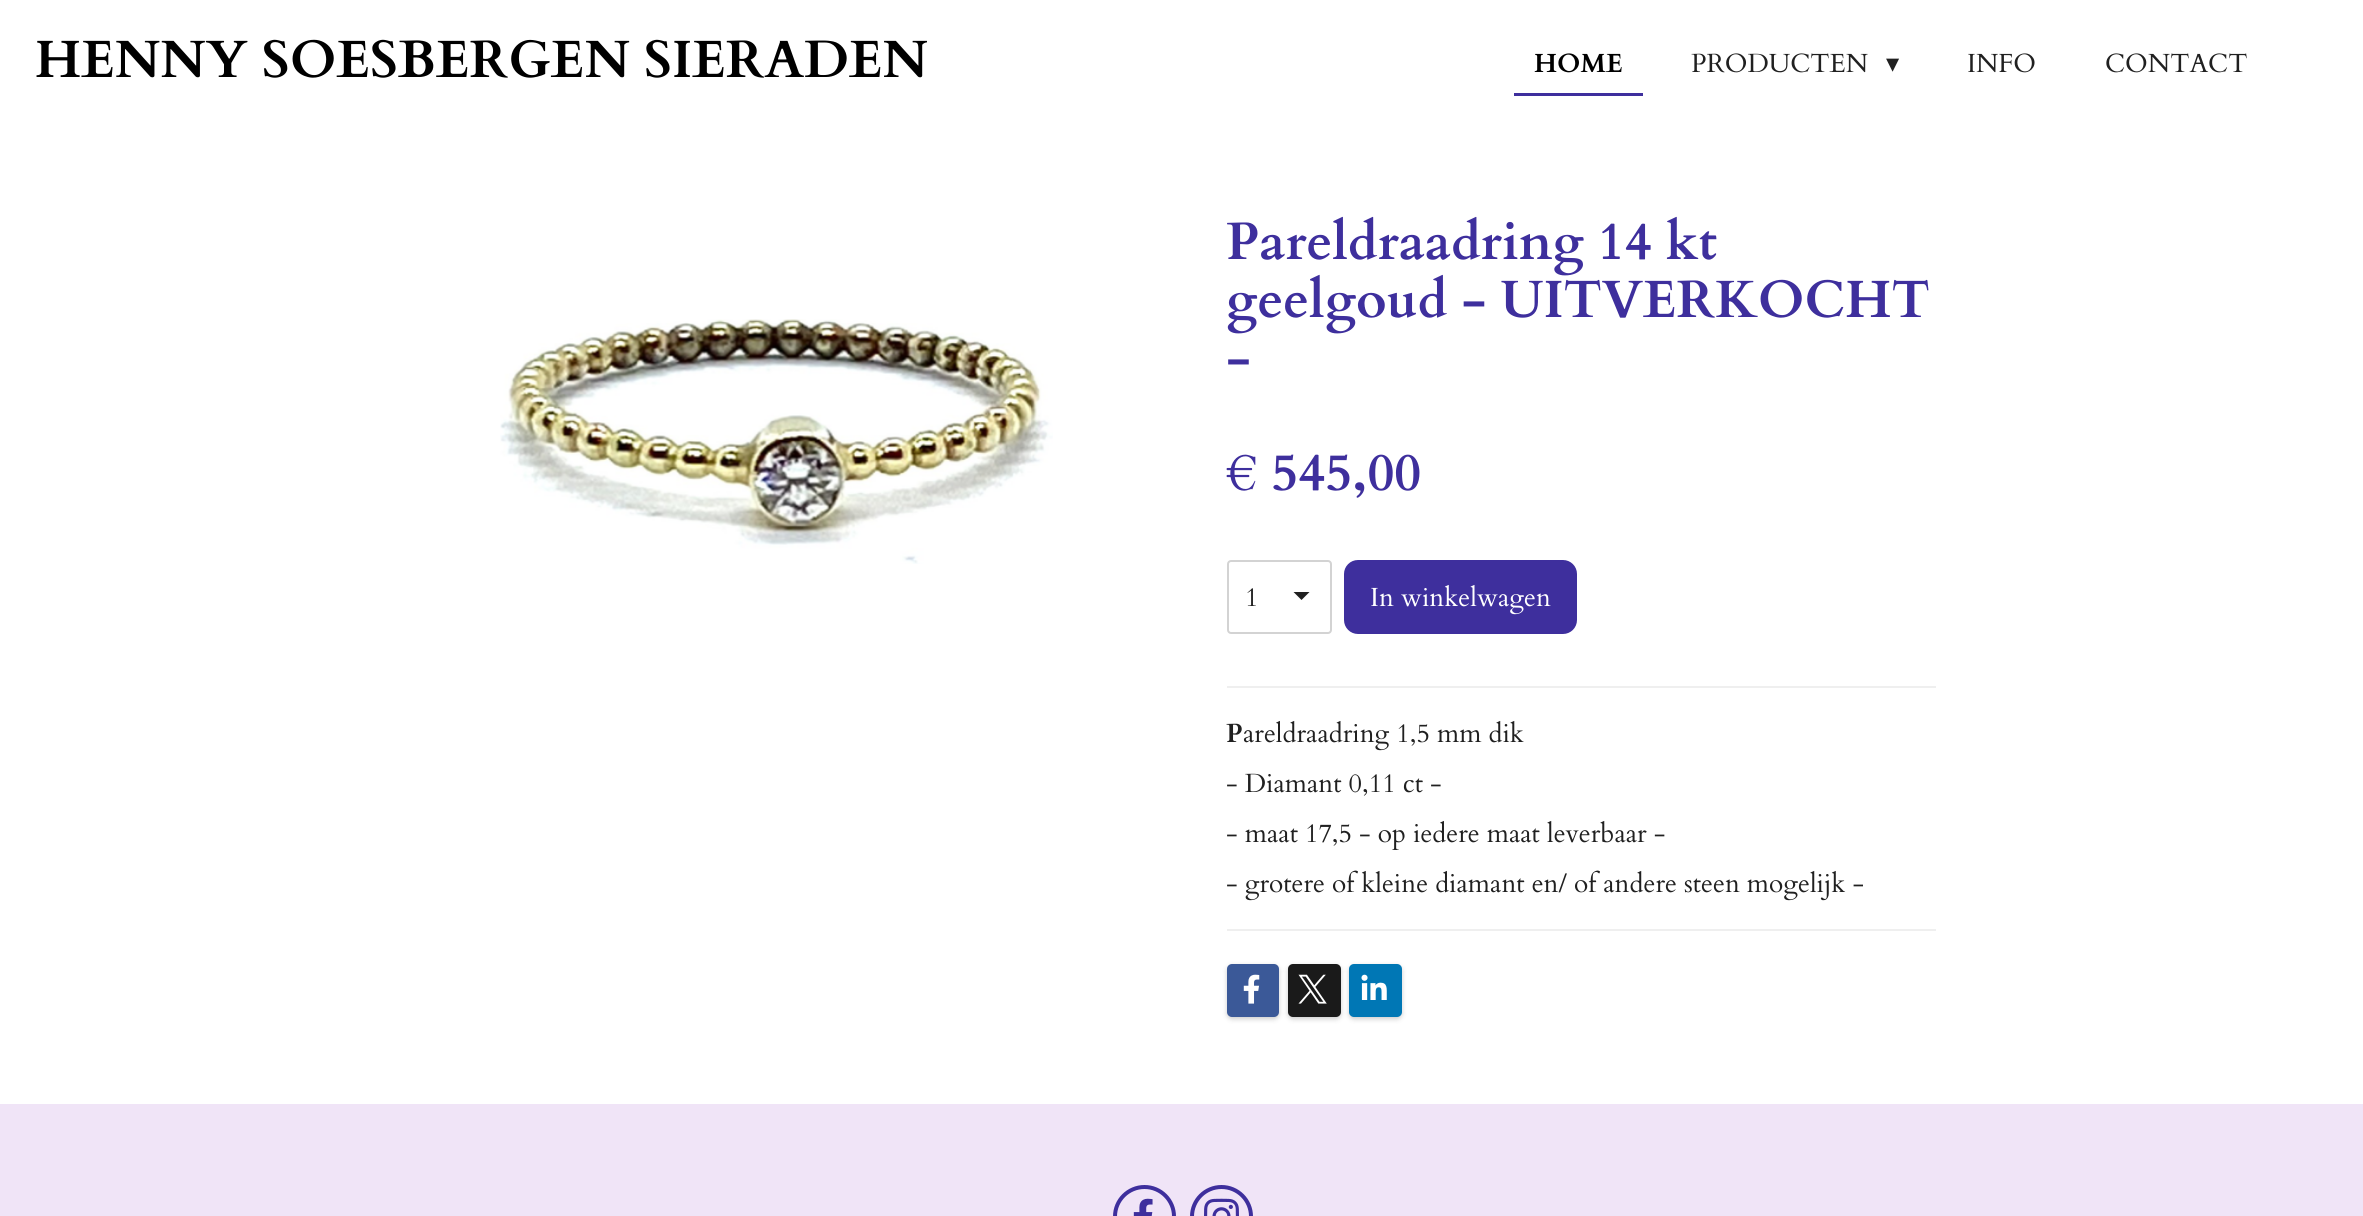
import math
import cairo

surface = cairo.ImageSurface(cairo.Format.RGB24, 2363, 1216)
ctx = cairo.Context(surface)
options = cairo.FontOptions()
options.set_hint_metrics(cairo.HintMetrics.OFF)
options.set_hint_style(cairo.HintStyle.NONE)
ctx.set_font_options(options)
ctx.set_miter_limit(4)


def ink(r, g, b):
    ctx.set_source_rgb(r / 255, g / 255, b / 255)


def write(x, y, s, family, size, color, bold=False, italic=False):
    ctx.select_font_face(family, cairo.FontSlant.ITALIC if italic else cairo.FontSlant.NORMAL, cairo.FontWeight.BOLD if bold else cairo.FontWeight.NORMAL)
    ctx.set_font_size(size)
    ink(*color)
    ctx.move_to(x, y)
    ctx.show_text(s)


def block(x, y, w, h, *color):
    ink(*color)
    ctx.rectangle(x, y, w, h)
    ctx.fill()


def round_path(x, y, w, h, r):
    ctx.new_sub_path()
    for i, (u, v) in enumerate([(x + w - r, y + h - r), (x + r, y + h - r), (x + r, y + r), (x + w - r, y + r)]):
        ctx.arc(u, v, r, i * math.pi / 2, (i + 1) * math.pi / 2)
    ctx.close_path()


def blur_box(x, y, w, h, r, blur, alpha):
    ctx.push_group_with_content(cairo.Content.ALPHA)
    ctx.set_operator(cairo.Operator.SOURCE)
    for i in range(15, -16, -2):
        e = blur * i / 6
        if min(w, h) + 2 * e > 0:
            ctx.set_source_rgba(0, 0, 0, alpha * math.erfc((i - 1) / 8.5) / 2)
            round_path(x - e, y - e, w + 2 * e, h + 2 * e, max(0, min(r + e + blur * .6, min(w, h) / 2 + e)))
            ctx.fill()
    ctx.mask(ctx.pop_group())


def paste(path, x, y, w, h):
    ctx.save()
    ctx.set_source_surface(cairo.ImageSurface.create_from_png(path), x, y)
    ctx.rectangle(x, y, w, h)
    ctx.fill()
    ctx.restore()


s1 = dict(family="Cardo", size=52.5, color=(0, 0, 0), bold=True)
s2 = dict(family="Cardo", size=26.25, color=(0, 0, 0), bold=True)
s3 = dict(family="Cardo", size=26.25, color=(32, 32, 32))
s4 = dict(family="DejaVu Sans", size=26.25, color=(32, 32, 32))
s5 = dict(family="Cardo", size=52.5, color=(62, 47, 157), bold=True)
s6 = dict(family="Cardo", size=26.25, color=(255, 255, 255))
s7 = dict(family="Cardo", size=26.25, color=(32, 32, 32), bold=True)

ink(255, 255, 255)
ctx.paint()
write(35, 77, "HENNY SOESBERGEN SIERADEN", **s1)
block(1514, 93, 129, 3, 62, 47, 157)
write(1534, 72, "HOME", **s2)
write(1691, 72, "PRODUCTEN", **s3)
write(1886, 72, "▾", **s4)
write(1967, 72, "INFO", **s3)
write(2105, 72, "CONTACT", **s3)
write(1226, 259, "Pareldraadring 14 kt", **s5)
write(1226, 317, "geelgoud - UITVERKOCHT", **s5)
write(1226, 375, "-", **s5)
paste("pic1.png", 500, 319, 553, 245)
write(1226, 490, "€ 545,00", **s5)
ink(32, 32, 32)
ctx.new_path()
ctx.move_to(1301.5, 600)
ctx.line_to(1293.5, 592)
ctx.line_to(1309.5, 592)
ctx.close_path()
ctx.fill()
round_path(1228, 561, 103, 72, 3)
ink(211, 211, 211)
ctx.stroke()
write(1245, 606, "1", **s3)
ink(62, 47, 157)
round_path(1344, 560, 233, 74, 14)
ctx.fill()
write(1370, 606, "In winkelwagen", **s6)
block(1227, 686, 709, 2, 239, 239, 239)
write(1226, 742, "P", **s7)
write(1243, 742, "areldraadring 1,5 mm dik", **s3)
write(1226, 792, "- Diamant 0,11 ct -", **s3)
write(1226, 842, "- maat 17,5 - op iedere maat leverbaar -", **s3)
write(1226, 892, "- grotere of kleine diamant en/ of andere steen mogelijk -", **s3)
block(1227, 929, 709, 2, 239, 239, 239)
ink(0, 0, 0)
blur_box(1227, 966, 52, 53, 5, 2.5, 0.2)
ink(59, 89, 152)
round_path(1227, 964, 52, 53, 5)
ctx.fill()
paste("pic2.png", 1243, 974, 17, 30)
ink(0, 0, 0)
blur_box(1288, 966, 53, 53, 5, 2.5, 0.2)
ink(26, 26, 26)
round_path(1288, 964, 53, 53, 5)
ctx.fill()
paste("pic3.png", 1298, 974, 29, 30)
ink(0, 0, 0)
blur_box(1349, 966, 53, 53, 5, 2.5, 0.2)
ink(0, 119, 181)
round_path(1349, 964, 53, 53, 5)
ctx.fill()
paste("pic4.png", 1361, 974, 26, 26)
block(0, 1104, 2363, 112, 240, 228, 247)
ctx.arc(1144.5, 1216.5, 29.5, 0, 2 * math.pi)
ink(62, 47, 157)
ctx.set_line_width(4)
ctx.stroke()
paste("pic5.png", 1133, 1198, 20, 18)
ctx.arc(1221.5, 1216.5, 29.5, 0, 2 * math.pi)
ctx.stroke()
paste("pic6.png", 1204, 1198, 35, 18)
surface.write_to_png("screenshot.png")
